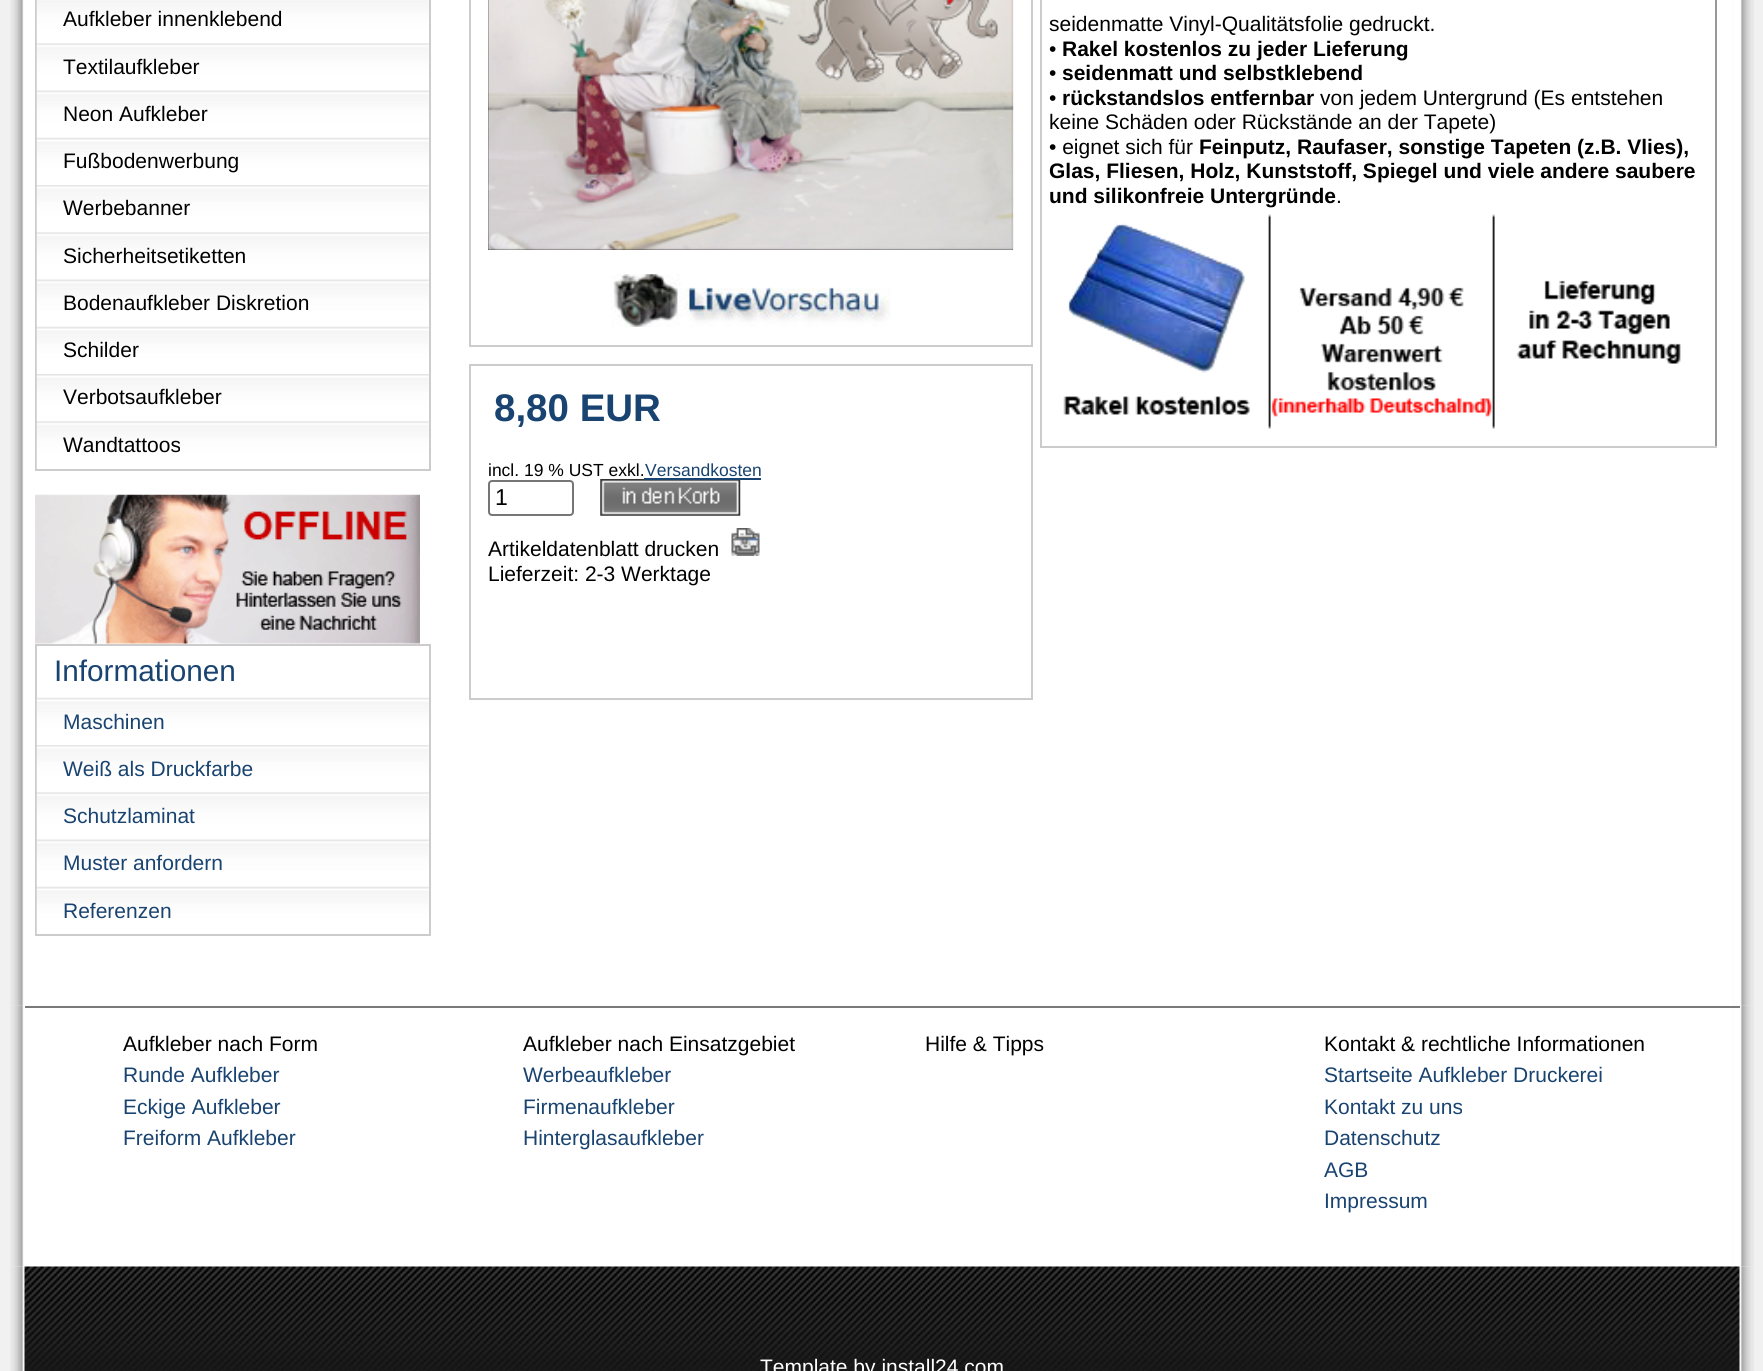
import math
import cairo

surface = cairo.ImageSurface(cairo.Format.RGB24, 1763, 1371)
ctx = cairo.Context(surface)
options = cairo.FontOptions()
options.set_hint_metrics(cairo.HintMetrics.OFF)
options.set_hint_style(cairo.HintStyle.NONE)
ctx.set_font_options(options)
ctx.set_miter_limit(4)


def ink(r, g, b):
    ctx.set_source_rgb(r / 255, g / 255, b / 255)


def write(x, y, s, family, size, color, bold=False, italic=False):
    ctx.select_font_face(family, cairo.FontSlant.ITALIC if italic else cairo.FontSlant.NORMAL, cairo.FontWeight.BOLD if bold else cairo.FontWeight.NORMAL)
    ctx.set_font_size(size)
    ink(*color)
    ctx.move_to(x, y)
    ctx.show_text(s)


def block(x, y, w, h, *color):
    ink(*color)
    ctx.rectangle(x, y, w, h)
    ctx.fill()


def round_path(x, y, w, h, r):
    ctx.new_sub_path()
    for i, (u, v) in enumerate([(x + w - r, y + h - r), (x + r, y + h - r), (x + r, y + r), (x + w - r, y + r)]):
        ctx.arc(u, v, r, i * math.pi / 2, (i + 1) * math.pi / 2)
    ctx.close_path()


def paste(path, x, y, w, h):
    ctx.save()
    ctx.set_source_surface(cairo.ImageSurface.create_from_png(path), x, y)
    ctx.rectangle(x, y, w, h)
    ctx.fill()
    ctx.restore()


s1 = dict(family="Liberation Sans", size=21, color=(0, 0, 0))
s2 = dict(family="Liberation Sans", size=29.75, color=(25, 67, 112))
s3 = dict(family="Liberation Sans", size=21, color=(25, 67, 112))
s4 = dict(family="Liberation Sans", size=21, color=(0, 0, 0), bold=True)
s5 = dict(family="Liberation Sans", size=38.5, color=(25, 67, 112), bold=True)
s6 = dict(family="Liberation Sans", size=17.5, color=(0, 0, 0))
s7 = dict(family="Liberation Sans", size=17.5, color=(25, 67, 112))
s8 = dict(family="Liberation Sans", size=23, color=(0, 0, 0))
s9 = dict(family="Liberation Sans", size=21, color=(255, 255, 255))

ink(241, 241, 241)
ctx.paint()
paste("pic15.png", 10, 1005, 1744, 20)
paste("pic1.png", 10, 0, 1744, 1006)
ctx.rectangle(36, -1, 394, 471)
ink(204, 204, 204)
ctx.stroke()
paste("pic2.png", 36, 0, 393, 43)
write(63, 26, "Aufkleber innenklebend", **s1)
paste("pic3.png", 36, 43, 393, 48)
write(63, 74, "Textilaufkleber", **s1)
paste("pic4.png", 36, 90, 393, 48)
write(63, 121, "Neon Aufkleber", **s1)
paste("pic5.png", 36, 137, 393, 48)
write(63, 168, "Fußbodenwerbung", **s1)
paste("pic6.png", 36, 185, 393, 47)
write(63, 215, "Werbebanner", **s1)
paste("pic3.png", 36, 232, 393, 48)
write(63, 263, "Sicherheitsetiketten", **s1)
paste("pic4.png", 36, 279, 393, 48)
write(63, 310, "Bodenaufkleber Diskretion", **s1)
paste("pic5.png", 36, 326, 393, 48)
write(63, 357, "Schilder", **s1)
paste("pic6.png", 36, 374, 393, 47)
write(63, 404, "Verbotsaufkleber", **s1)
paste("pic3.png", 36, 421, 393, 48)
write(63, 452, "Wandtattoos", **s1)
paste("pic7.png", 35, 494, 385, 150)
ctx.rectangle(36, 645, 394, 290)
ink(204, 204, 204)
ctx.stroke()
write(54, 681, "Informationen", **s2)
paste("pic8.png", 36, 697, 393, 48)
write(63, 729, "Maschinen", **s3)
paste("pic9.png", 36, 745, 393, 47)
write(63, 776, "Weiß als Druckfarbe", **s3)
paste("pic3.png", 36, 792, 393, 48)
write(63, 823, "Schutzlaminat", **s3)
paste("pic4.png", 36, 839, 393, 48)
write(63, 870, "Muster anfordern", **s3)
paste("pic5.png", 36, 886, 393, 48)
write(63, 918, "Referenzen", **s3)
block(1715, 0, 2, 448, 153, 153, 153)
block(1040, 446, 677, 2, 204, 204, 204)
block(1040, 0, 2, 448, 204, 204, 204)
write(1049, 31, "seidenmatte Vinyl-Qualitätsfolie gedruckt.", **s1)
write(1049, 56, "•", **s1)
write(1062, 56, "Rakel kostenlos zu jeder Lieferung", **s4)
write(1049, 80, "•", **s1)
write(1062, 80, "seidenmatt und selbstklebend", **s4)
write(1049, 105, "•", **s1)
write(1062, 105, "rückstandslos entfernbar", **s4)
write(1320, 105, "von jedem Untergrund (Es entstehen", **s1)
write(1049, 129, "keine Schäden oder Rückstände an der Tapete)", **s1)
write(1049, 154, "• eignet sich für", **s1)
write(1199, 154, "Feinputz, Raufaser, sonstige Tapeten (z.B. Vlies),", **s4)
write(1049, 178, "Glas, Fliesen, Holz, Kunststoff, Spiegel und viele andere saubere", **s4)
write(1049, 203, "und silikonfreie Untergründe", **s4)
write(1336, 203, ".", **s1)
paste("pic10.png", 1063, 207, 618, 222)
ctx.rectangle(470, -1, 562, 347)
ink(204, 204, 204)
ctx.stroke()
block(488, 0, 525, 250, 0, 0, 0)
paste("pic11.png", 488, 0, 526, 250)
paste("pic12.png", 611, 274, 280, 53)
ctx.rectangle(470, 365, 562, 334)
ink(204, 204, 204)
ctx.stroke()
write(494, 421, "8,80 EUR", **s5)
write(488, 476, "incl. 19 % UST exkl.", **s6)
paste("pic13.png", 600, 479, 141, 37)
block(644, 478, 117, 2, 25, 67, 112)
write(645, 476, "Versandkosten", **s7)
round_path(489, 481, 84, 34, 3)
ink(118, 118, 118)
ctx.stroke()
write(495, 505, "1", **s8)
write(488, 556, "Artikeldatenblatt drucken", **s1)
paste("pic14.png", 731, 528, 29, 28)
write(488, 581, "Lieferzeit: 2-3 Werktage", **s1)
block(25, 1006, 1715, 2, 123, 122, 122)
paste("pic16.png", 10, 1025, 1744, 242)
write(123, 1051, "Aufkleber nach Form", **s1)
write(523, 1051, "Aufkleber nach Einsatzgebiet", **s1)
write(925, 1051, "Hilfe & Tipps", **s1)
write(1324, 1051, "Kontakt & rechtliche Informationen", **s1)
write(123, 1082, "Runde Aufkleber", **s3)
write(523, 1082, "Werbeaufkleber", **s3)
write(1324, 1082, "Startseite Aufkleber Druckerei", **s3)
write(123, 1114, "Eckige Aufkleber", **s3)
write(523, 1114, "Firmenaufkleber", **s3)
write(1324, 1114, "Kontakt zu uns", **s3)
write(123, 1145, "Freiform Aufkleber", **s3)
write(523, 1145, "Hinterglasaufkleber", **s3)
write(1324, 1145, "Datenschutz", **s3)
write(1324, 1177, "AGB", **s3)
write(1324, 1208, "Impressum", **s3)
paste("pic17.png", 10, 1266, 1744, 105)
paste("pic18.png", 24, 1266, 1716, 105)
write(760, 1374, "Template by install24.com", **s9)
surface.write_to_png("screenshot.png")
